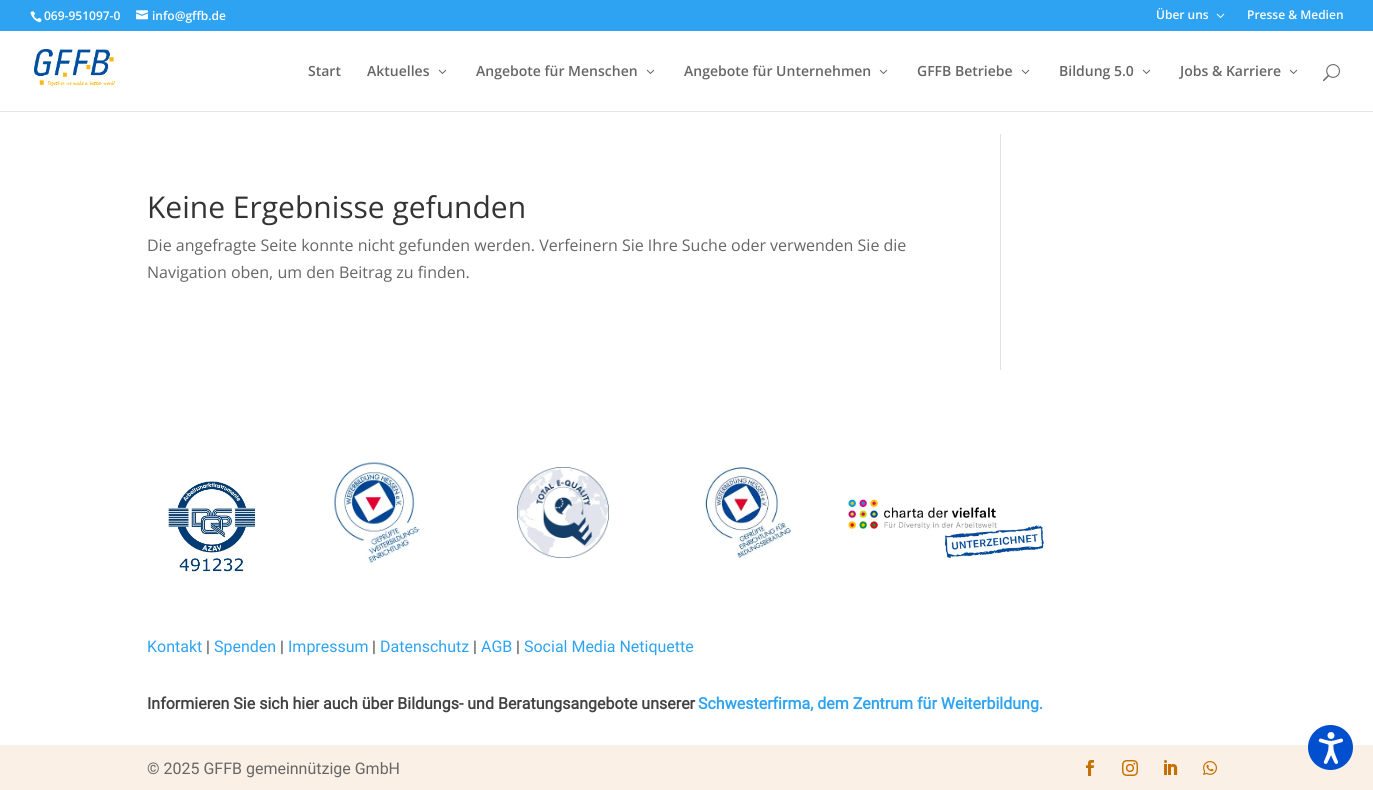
import math
import cairo

surface = cairo.ImageSurface(cairo.Format.RGB24, 1373, 790)
ctx = cairo.Context(surface)
options = cairo.FontOptions()
options.set_hint_metrics(cairo.HintMetrics.OFF)
options.set_hint_style(cairo.HintStyle.NONE)
ctx.set_font_options(options)
ctx.set_miter_limit(4)


def ink(r, g, b):
    ctx.set_source_rgb(r / 255, g / 255, b / 255)


def write(x, y, s, family, size, color, bold=False, italic=False):
    ctx.select_font_face(family, cairo.FontSlant.ITALIC if italic else cairo.FontSlant.NORMAL, cairo.FontWeight.BOLD if bold else cairo.FontWeight.NORMAL)
    ctx.set_font_size(size)
    ink(*color)
    ctx.move_to(x, y)
    ctx.show_text(s)


def block(x, y, w, h, *color):
    ink(*color)
    ctx.rectangle(x, y, w, h)
    ctx.fill()


def paste(path, x, y, w, h):
    ctx.save()
    ctx.set_source_surface(cairo.ImageSurface.create_from_png(path), x, y)
    ctx.rectangle(x, y, w, h)
    ctx.fill()
    ctx.restore()


s1 = dict(family="Open Sans SemiBold", size=12, color=(255, 255, 255))
s2 = dict(family="Open Sans SemiBold", size=14, color=(102, 102, 102))
s3 = dict(family="Open Sans", size=30, color=(51, 51, 51))
s4 = dict(family="Open Sans", size=16, color=(102, 102, 102))
s5 = dict(family="Roboto", size=16, color=(46, 163, 242))
s6 = dict(family="Roboto", size=16, color=(66, 66, 66))
s7 = dict(family="Roboto", size=16, color=(66, 66, 66), bold=True)
s8 = dict(family="Roboto", size=16, color=(46, 163, 242), bold=True)
s9 = dict(family="Roboto", size=16, color=(102, 102, 102))

ink(255, 255, 255)
ctx.paint()
block(0, 0, 1373, 31, 46, 163, 242)
paste("pic1.png", 30, 11, 12, 12)
write(44, 20, "069-951097-0", **s1)
paste("pic2.png", 136, 10, 12, 10)
write(152, 20, "info@gffb.de", **s1)
write(1156, 19, "Über uns", **s1)
paste("pic3.png", 1216, 13, 9, 5)
write(1247, 19, "Presse & Medien", **s1)
block(0, 111, 1373, 1, 230, 230, 230)
paste("pic4.png", 34, 49, 82, 38)
write(308, 76, "Start", **s2)
write(367, 76, "Aktuelles", **s2)
paste("pic5.png", 438, 69, 9, 5)
write(476, 76, "Angebote für Menschen", **s2)
paste("pic5.png", 646, 69, 9, 5)
write(684, 76, "Angebote für Unternehmen", **s2)
paste("pic5.png", 879, 69, 9, 5)
write(917, 76, "GFFB Betriebe", **s2)
paste("pic5.png", 1021, 69, 9, 5)
write(1059, 76, "Bildung 5.0", **s2)
paste("pic5.png", 1142, 69, 9, 5)
write(1180, 76, "Jobs & Karriere", **s2)
paste("pic5.png", 1289, 69, 9, 5)
paste("pic6.png", 1323, 64, 17, 18)
write(147, 218, "Keine Ergebnisse gefunden", **s3)
write(147, 251, "Die angefragte Seite konnte nicht gefunden werden. Verfeinern Sie Ihre Suche oder verwenden Sie die", **s4)
write(147, 278, "Navigation oben, um den Beitrag zu finden.", **s4)
block(1000, 134, 1, 236, 226, 226, 226)
paste("pic7.png", 168, 481, 88, 91)
paste("pic8.png", 332, 460, 88, 103)
paste("pic9.png", 517, 467, 92, 91)
paste("pic10.png", 705, 465, 87, 93)
paste("pic11.png", 848, 499, 196, 60)
write(147, 652, "Kontakt", **s5)
write(206, 652, "|", **s6)
write(214, 652, "Spenden", **s5)
write(280, 652, "|", **s6)
write(288, 652, "Impressum", **s5)
write(372, 652, "|", **s6)
write(380, 652, "Datenschutz", **s5)
write(473, 652, "|", **s6)
write(481, 652, "AGB", **s5)
write(516, 652, "|", **s6)
write(524, 652, "Social Media Netiquette", **s5)
write(147, 709, "Informieren Sie sich hier auch über Bildungs- und Beratungsangebote unserer", **s7)
write(698, 709, "Schwesterfirma, dem Zentrum für Weiterbildung.", **s8)
block(0, 745, 1373, 45, 250, 240, 230)
write(147, 774, "© 2025 GFFB gemeinnützige GmbH", **s9)
paste("pic12.png", 1086, 760, 8, 16)
paste("pic13.png", 1122, 760, 16, 16)
paste("pic14.png", 1164, 760, 14, 15)
paste("pic15.png", 1203, 761, 14, 14)
ink(0, 79, 206)
ctx.arc(1330.5, 747.5, 22.5, 0, 2 * math.pi)
ctx.fill()
paste("pic16.png", 1318, 732, 26, 32)
surface.write_to_png("screenshot.png")
